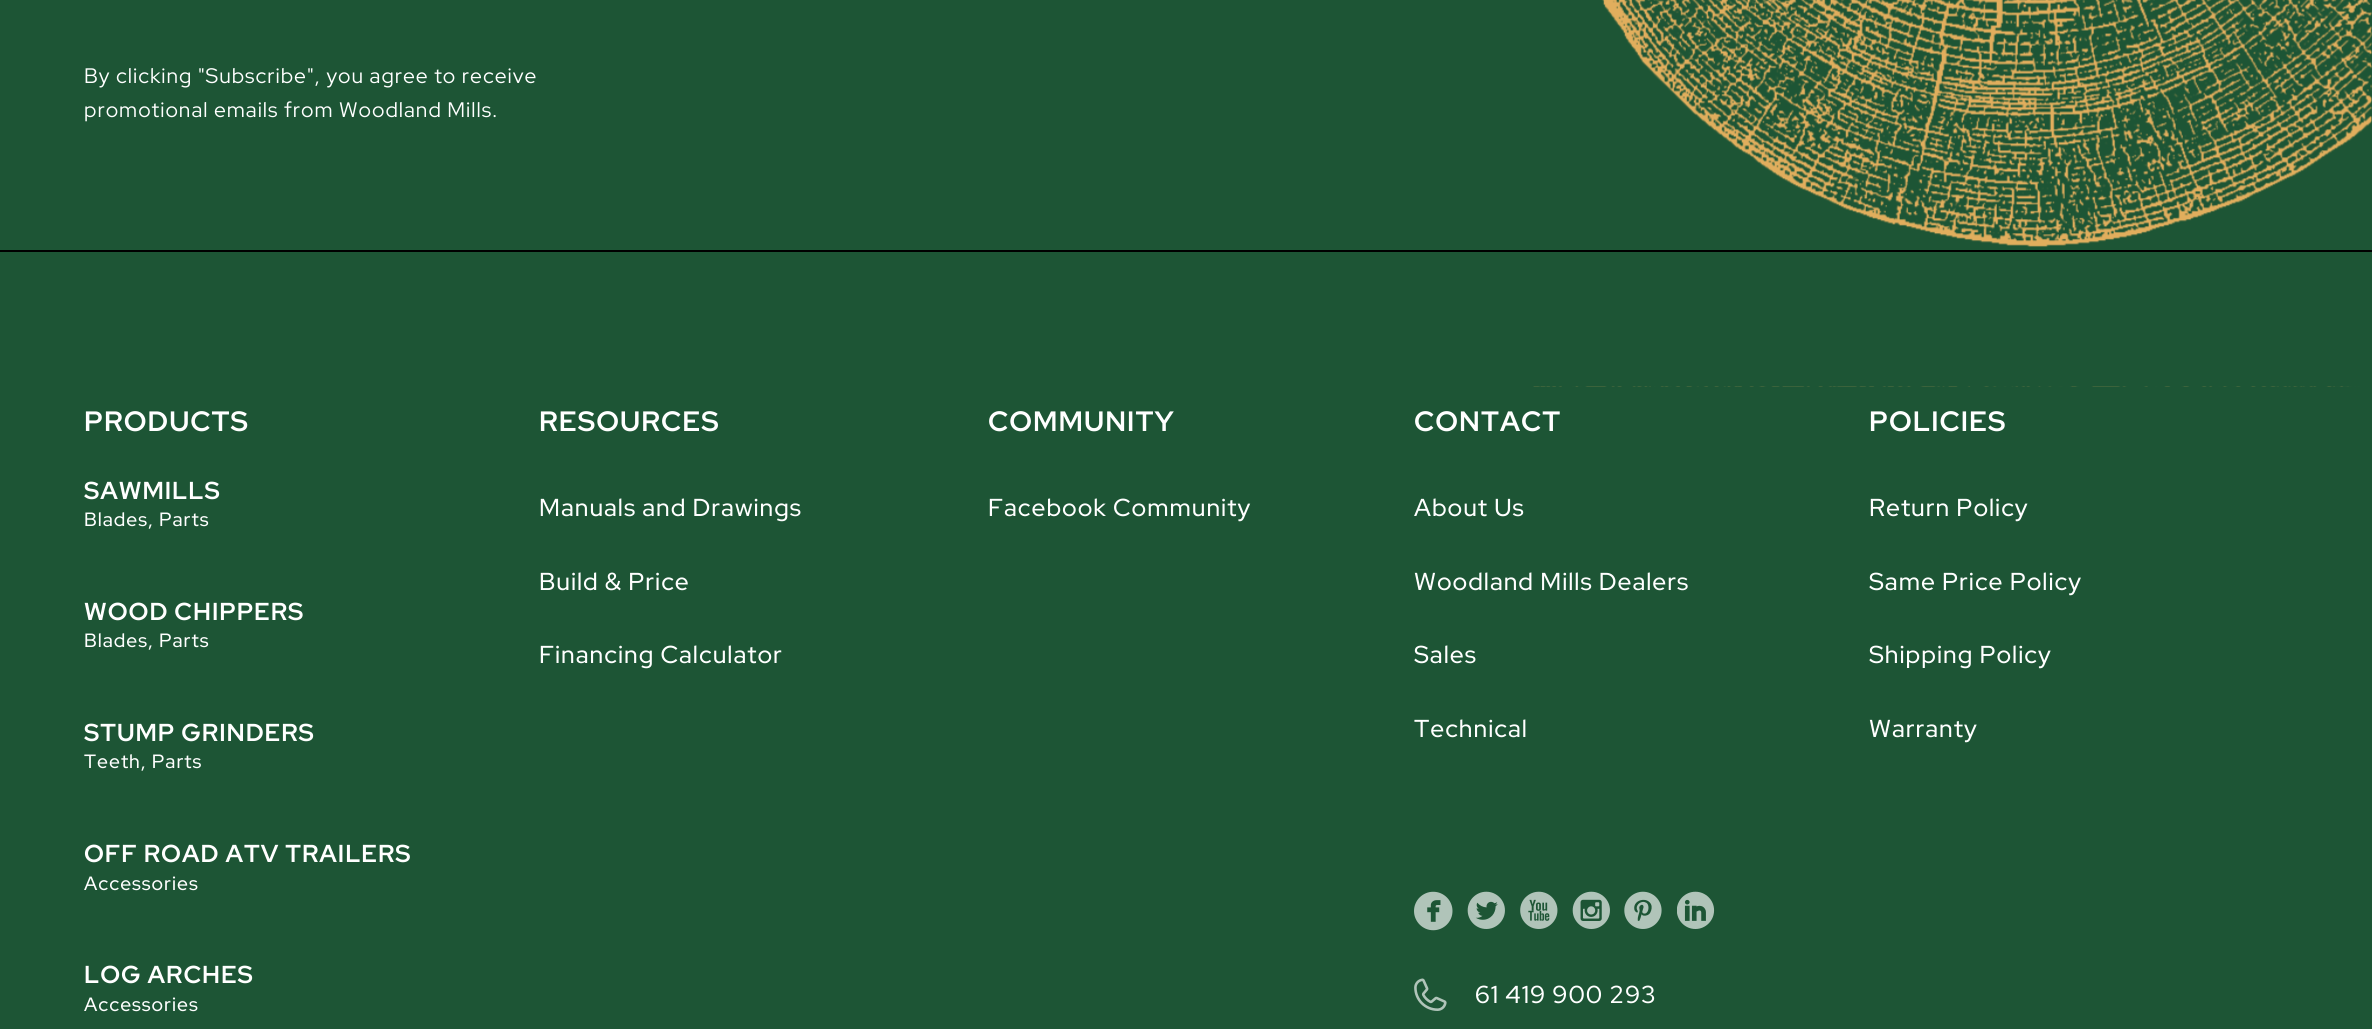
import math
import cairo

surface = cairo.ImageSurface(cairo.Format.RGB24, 2372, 1029)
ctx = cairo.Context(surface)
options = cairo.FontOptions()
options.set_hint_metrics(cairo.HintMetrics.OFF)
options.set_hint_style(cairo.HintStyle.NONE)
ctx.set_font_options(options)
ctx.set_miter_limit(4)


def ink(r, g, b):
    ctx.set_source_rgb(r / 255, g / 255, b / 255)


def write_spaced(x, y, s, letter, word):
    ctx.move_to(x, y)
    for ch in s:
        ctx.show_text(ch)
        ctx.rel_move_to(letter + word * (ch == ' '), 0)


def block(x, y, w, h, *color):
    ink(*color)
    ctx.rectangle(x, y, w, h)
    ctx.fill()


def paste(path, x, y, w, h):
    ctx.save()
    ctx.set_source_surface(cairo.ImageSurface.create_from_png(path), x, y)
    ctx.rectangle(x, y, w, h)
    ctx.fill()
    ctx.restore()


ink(29, 85, 53)
ctx.paint()
ctx.select_font_face("Red Hat Display")
ctx.set_font_size(21)
ink(255, 255, 255)
write_spaced(84, 83, "By clicking \"Subscribe\", you agree to receive", 1, 0)
write_spaced(84, 117, "promotional emails from Woodland Mills.", 1, 0)
paste("pic1.png", 1533, 0, 839, 387)
block(0, 250, 2372, 2, 0, 0, 0)
ctx.select_font_face("Red Hat Display", cairo.FontSlant.NORMAL, cairo.FontWeight.BOLD)
ctx.set_font_size(28)
ink(255, 255, 255)
write_spaced(84, 431, "PRODUCTS", 1.1, 0)
ctx.set_font_size(24.5)
write_spaced(84, 499, "SAWMILLS", 1, 0)
ctx.select_font_face("Red Hat Display Medium")
ctx.set_font_size(19.25)
write_spaced(84, 526, "Blades, Parts", 1, 0)
ctx.select_font_face("Red Hat Display", cairo.FontSlant.NORMAL, cairo.FontWeight.BOLD)
ctx.set_font_size(24.5)
write_spaced(84, 620, "WOOD CHIPPERS", 1, 0)
ctx.select_font_face("Red Hat Display Medium")
ctx.set_font_size(19.25)
write_spaced(84, 647, "Blades, Parts", 1, 0)
ctx.select_font_face("Red Hat Display", cairo.FontSlant.NORMAL, cairo.FontWeight.BOLD)
ctx.set_font_size(24.5)
write_spaced(84, 741, "STUMP GRINDERS", 1, 0)
ctx.select_font_face("Red Hat Display Medium")
ctx.set_font_size(19.25)
write_spaced(84, 768, "Teeth, Parts", 1, 0)
ctx.select_font_face("Red Hat Display", cairo.FontSlant.NORMAL, cairo.FontWeight.BOLD)
ctx.set_font_size(24.5)
write_spaced(84, 862, "OFF ROAD ATV TRAILERS", 1, 0)
ctx.select_font_face("Red Hat Display Medium")
ctx.set_font_size(19.25)
write_spaced(84, 890, "Accessories", 1, 0)
ctx.select_font_face("Red Hat Display", cairo.FontSlant.NORMAL, cairo.FontWeight.BOLD)
ctx.set_font_size(24.5)
write_spaced(84, 983, "LOG ARCHES", 1, 0)
ctx.select_font_face("Red Hat Display Medium")
ctx.set_font_size(19.25)
write_spaced(84, 1011, "Accessories", 1, 0)
ctx.select_font_face("Red Hat Display", cairo.FontSlant.NORMAL, cairo.FontWeight.BOLD)
ctx.set_font_size(28)
write_spaced(539, 431, "RESOURCES", 1.1, 0)
ctx.select_font_face("Red Hat Display Medium")
ctx.set_font_size(24.5)
write_spaced(539, 516, "Manuals and Drawings", 1, 0)
write_spaced(539, 590, "Build & Price", 1, 0)
write_spaced(539, 663, "Financing Calculator", 1, 0)
ctx.select_font_face("Red Hat Display", cairo.FontSlant.NORMAL, cairo.FontWeight.BOLD)
ctx.set_font_size(28)
write_spaced(988, 431, "COMMUNITY", 1.1, 0)
ctx.select_font_face("Red Hat Display Medium")
ctx.set_font_size(24.5)
write_spaced(988, 516, "Facebook Community", 1, 0)
ctx.select_font_face("Red Hat Display", cairo.FontSlant.NORMAL, cairo.FontWeight.BOLD)
ctx.set_font_size(28)
write_spaced(1414, 431, "CONTACT", 1.1, 0)
ctx.select_font_face("Red Hat Display Medium")
ctx.set_font_size(24.5)
write_spaced(1414, 516, "About Us", 1, 0)
write_spaced(1414, 590, "Woodland Mills Dealers", 1, 0)
write_spaced(1414, 663, "Sales", 1, 0)
write_spaced(1414, 737, "Technical", 1, 0)
paste("pic2.png", 1414, 891, 39, 40)
paste("pic3.png", 1467, 891, 38, 38)
paste("pic4.png", 1520, 891, 38, 38)
paste("pic5.png", 1572, 891, 38, 38)
paste("pic6.png", 1624, 891, 38, 38)
paste("pic7.png", 1677, 891, 38, 38)
paste("pic8.png", 1414, 978, 33, 33)
write_spaced(1475, 1003, "61 419 900 293", 1, 0)
ctx.select_font_face("Red Hat Display", cairo.FontSlant.NORMAL, cairo.FontWeight.BOLD)
ctx.set_font_size(28)
write_spaced(1869, 431, "POLICIES", 1.1, 0)
ctx.select_font_face("Red Hat Display Medium")
ctx.set_font_size(24.5)
write_spaced(1869, 516, "Return Policy", 1, 0)
write_spaced(1869, 590, "Same Price Policy", 1, 0)
write_spaced(1869, 663, "Shipping Policy", 1, 0)
write_spaced(1869, 737, "Warranty", 1, 0)
surface.write_to_png("screenshot.png")
